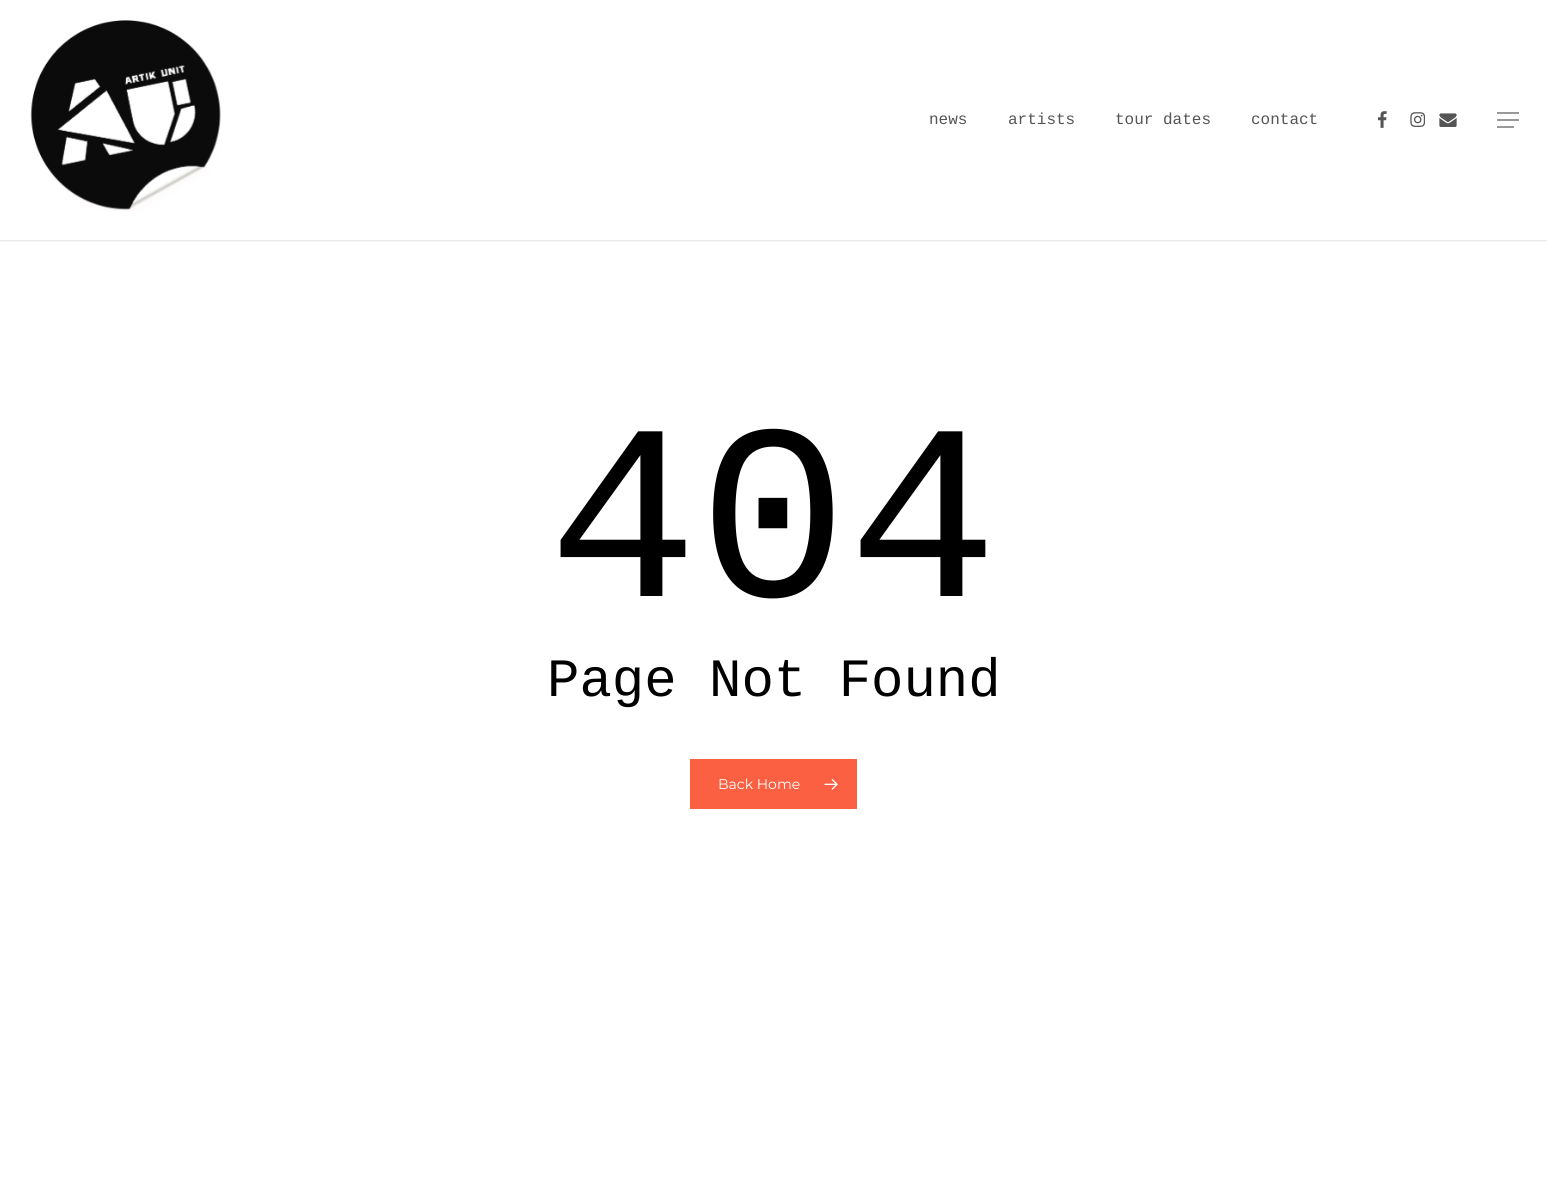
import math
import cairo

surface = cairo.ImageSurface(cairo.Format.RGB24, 1547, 1194)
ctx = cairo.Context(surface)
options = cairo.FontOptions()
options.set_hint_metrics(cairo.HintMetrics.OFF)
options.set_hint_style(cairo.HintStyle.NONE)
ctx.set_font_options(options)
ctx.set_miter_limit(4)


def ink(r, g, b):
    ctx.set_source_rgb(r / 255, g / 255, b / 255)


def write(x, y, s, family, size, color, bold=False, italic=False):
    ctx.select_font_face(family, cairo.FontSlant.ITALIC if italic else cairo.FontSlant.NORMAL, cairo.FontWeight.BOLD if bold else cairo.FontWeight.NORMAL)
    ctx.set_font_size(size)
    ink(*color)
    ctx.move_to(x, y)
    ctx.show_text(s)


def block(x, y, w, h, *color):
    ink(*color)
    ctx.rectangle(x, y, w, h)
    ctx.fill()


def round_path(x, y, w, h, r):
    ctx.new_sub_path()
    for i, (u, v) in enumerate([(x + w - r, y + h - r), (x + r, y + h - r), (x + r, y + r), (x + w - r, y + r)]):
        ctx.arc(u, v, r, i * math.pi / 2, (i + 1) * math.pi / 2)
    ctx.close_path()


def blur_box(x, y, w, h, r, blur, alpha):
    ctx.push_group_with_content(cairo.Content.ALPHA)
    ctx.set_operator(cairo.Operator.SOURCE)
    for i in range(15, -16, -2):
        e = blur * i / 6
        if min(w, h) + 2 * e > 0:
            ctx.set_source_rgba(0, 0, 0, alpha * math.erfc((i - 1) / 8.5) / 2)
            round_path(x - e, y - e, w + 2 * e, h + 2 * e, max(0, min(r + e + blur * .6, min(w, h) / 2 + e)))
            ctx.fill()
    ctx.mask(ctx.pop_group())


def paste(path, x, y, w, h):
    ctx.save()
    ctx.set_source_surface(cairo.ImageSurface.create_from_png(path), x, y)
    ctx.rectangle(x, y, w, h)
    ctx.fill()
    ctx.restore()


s1 = dict(family="Liberation Mono", size=16, color=(85, 85, 85))
s2 = dict(family="Liberation Mono", size=250, color=(0, 0, 0))
s3 = dict(family="Liberation Mono", size=54, color=(0, 0, 0))
s4 = dict(family="Montserrat Thin", size=14, color=(255, 255, 255))

ink(255, 255, 255)
ctx.paint()
ctx.save()
ctx.rectangle(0, 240, 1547, 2)
ctx.clip()
ink(0, 0, 0)
blur_box(0, 0, 1547, 240, 0, 1.5, 0.22)
ctx.restore()
paste("pic1.png", 30, 20, 191, 192)
write(929, 124, "news", **s1)
write(1008, 124, "artists", **s1)
write(1115, 124, "tour dates", **s1)
write(1251, 124, "contact", **s1)
paste("pic2.png", 1377, 111, 10, 17)
paste("pic3.png", 1410, 112, 15, 15)
paste("pic4.png", 1439, 113, 18, 14)
block(1497, 112, 22, 2, 153, 153, 153)
block(1497, 126, 17, 2, 153, 153, 153)
block(1497, 119, 22, 2, 153, 153, 153)
write(548, 596, "404", **s2)
write(547, 696, "Page Not Found", **s3)
block(690, 759, 167, 50, 252, 96, 66)
write(718, 789, "Back Home", **s4)
paste("pic5.png", 824, 779, 14, 11)
surface.write_to_png("screenshot.png")
